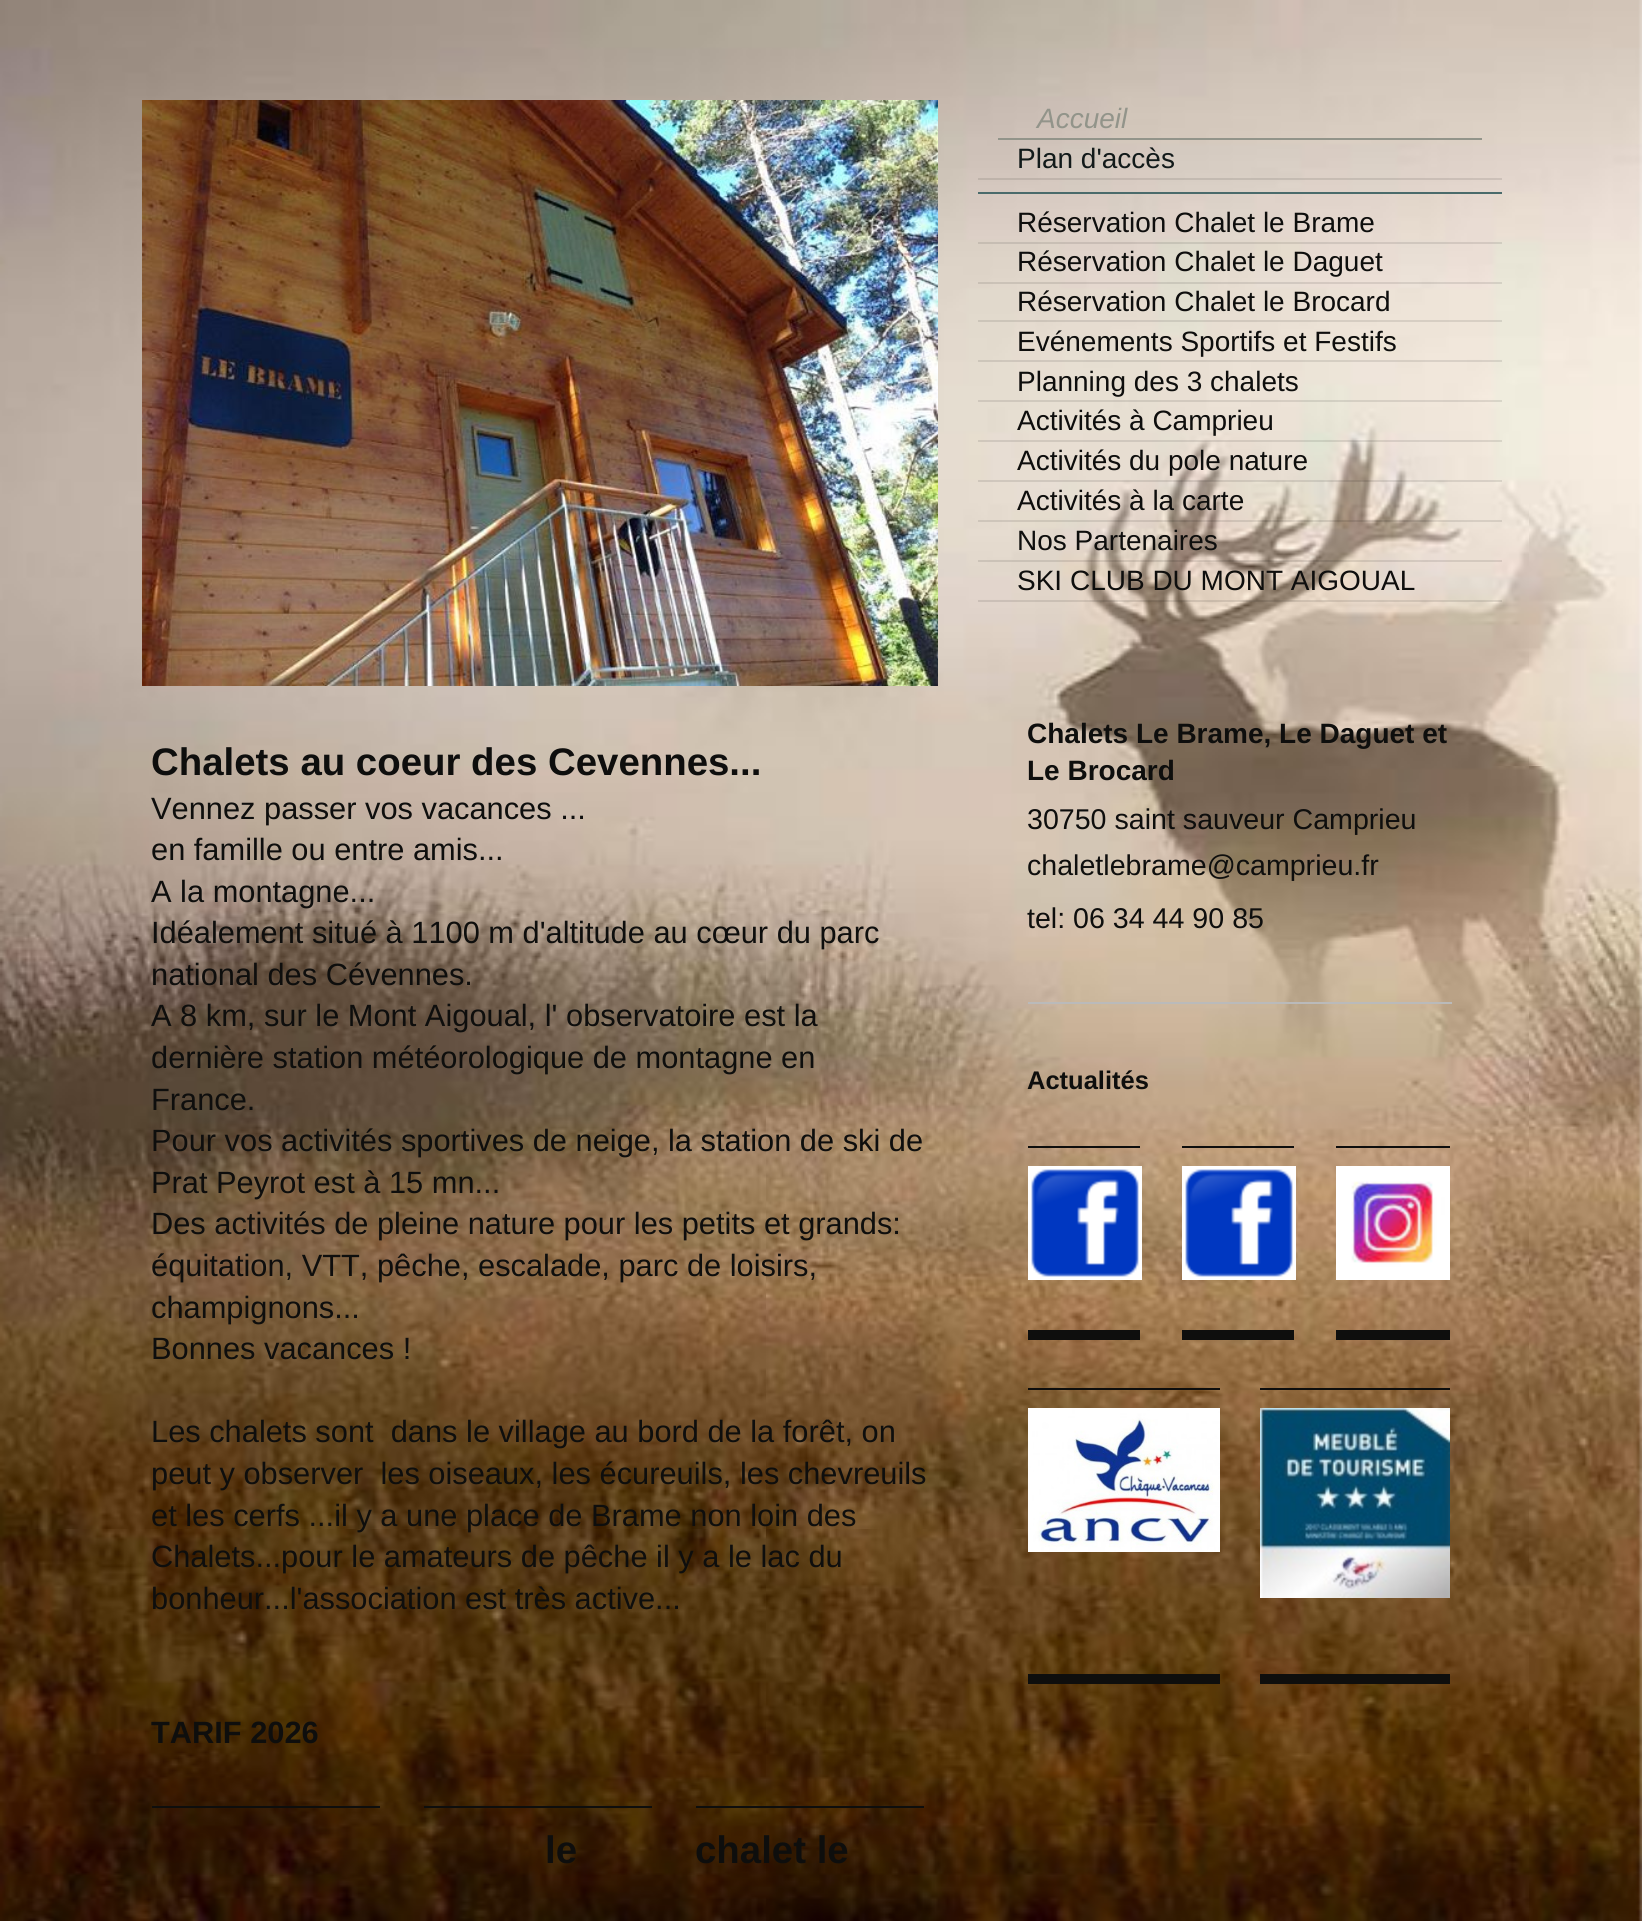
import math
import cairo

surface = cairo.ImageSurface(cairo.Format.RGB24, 1642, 1921)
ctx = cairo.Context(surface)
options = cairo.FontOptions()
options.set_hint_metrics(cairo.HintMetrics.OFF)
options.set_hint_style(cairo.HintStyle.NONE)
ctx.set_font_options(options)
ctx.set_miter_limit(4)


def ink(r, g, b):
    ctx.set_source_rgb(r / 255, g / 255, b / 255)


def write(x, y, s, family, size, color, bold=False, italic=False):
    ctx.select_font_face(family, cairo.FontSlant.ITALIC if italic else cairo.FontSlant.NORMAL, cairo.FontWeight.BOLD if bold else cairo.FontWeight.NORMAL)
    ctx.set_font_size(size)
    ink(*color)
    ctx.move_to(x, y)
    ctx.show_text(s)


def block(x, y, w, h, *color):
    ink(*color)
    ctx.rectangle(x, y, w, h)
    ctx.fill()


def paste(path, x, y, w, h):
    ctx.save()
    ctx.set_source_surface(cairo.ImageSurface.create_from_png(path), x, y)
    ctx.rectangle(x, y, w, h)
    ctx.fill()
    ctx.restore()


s1 = dict(family="Liberation Sans", size=28, color=(146, 148, 138), italic=True)
s2 = dict(family="Liberation Sans", size=28, color=(18, 26, 26))
s3 = dict(family="Liberation Sans", size=28, color=(14, 14, 13))
s4 = dict(family="Liberation Sans", size=28, color=(14, 14, 13), bold=True)
s5 = dict(family="Liberation Sans", size=28.6, color=(14, 14, 13))
s6 = dict(family="Liberation Sans", size=25.5, color=(14, 14, 13), bold=True)
s7 = dict(family="Liberation Sans", size=38.4, color=(14, 14, 13), bold=True)
s8 = dict(family="Liberation Sans", size=30.8, color=(14, 14, 13))
s9 = dict(family="Liberation Sans", size=30.8, color=(14, 14, 13), bold=True)

ink(255, 255, 255)
ctx.paint()
paste("pic1.png", 0, 0, 1642, 1921)
block(998, 138, 484, 2, 146, 148, 138)
write(1037, 128, "Accueil", **s1)
ctx.set_source_rgba(0, 0, 0, 0.1)
ctx.rectangle(978, 178, 524, 2)
ctx.fill()
write(1017, 168, "Plan d'accès", **s2)
block(978, 192, 524, 2, 74, 107, 107)
ctx.set_source_rgba(0, 0, 0, 0.1)
ctx.rectangle(978, 242, 524, 2)
ctx.fill()
write(1017, 232, "Réservation Chalet le Brame", **s3)
ctx.set_source_rgba(0, 0, 0, 0.1)
ctx.rectangle(978, 282, 524, 2)
ctx.fill()
write(1017, 271, "Réservation Chalet le Daguet", **s3)
ctx.set_source_rgba(0, 0, 0, 0.1)
ctx.rectangle(978, 320, 524, 2)
ctx.fill()
write(1017, 311, "Réservation Chalet le Brocard", **s3)
ctx.set_source_rgba(0, 0, 0, 0.1)
ctx.rectangle(978, 360, 524, 2)
ctx.fill()
write(1017, 351, "Evénements Sportifs et Festifs", **s3)
ctx.set_source_rgba(0, 0, 0, 0.1)
ctx.rectangle(978, 400, 524, 2)
ctx.fill()
write(1017, 391, "Planning des 3 chalets", **s3)
ctx.set_source_rgba(0, 0, 0, 0.1)
ctx.rectangle(978, 440, 524, 2)
ctx.fill()
write(1017, 430, "Activités à Camprieu", **s3)
ctx.set_source_rgba(0, 0, 0, 0.1)
ctx.rectangle(978, 480, 524, 2)
ctx.fill()
write(1017, 470, "Activités du pole nature", **s3)
ctx.set_source_rgba(0, 0, 0, 0.1)
ctx.rectangle(978, 520, 524, 2)
ctx.fill()
write(1017, 510, "Activités à la carte", **s3)
ctx.set_source_rgba(0, 0, 0, 0.1)
ctx.rectangle(978, 560, 524, 2)
ctx.fill()
write(1017, 550, "Nos Partenaires", **s3)
ctx.set_source_rgba(0, 0, 0, 0.1)
ctx.rectangle(978, 600, 524, 2)
ctx.fill()
write(1017, 590, "SKI CLUB DU MONT AIGOUAL", **s3)
write(1027, 743, "Chalets Le Brame, Le Daguet et", **s4)
write(1027, 780, "Le Brocard", **s4)
write(1027, 829, "30750 saint sauveur Camprieu", **s5)
write(1027, 875, "chaletlebrame@camprieu.fr", **s5)
write(1027, 928, "tel: 06 34 44 90 85", **s5)
block(1028, 1002, 424, 2, 186, 186, 186)
write(1027, 1089, "Actualités", **s6)
block(1028, 1146, 112, 2, 14, 14, 13)
block(1028, 1330, 112, 10, 14, 14, 13)
paste("pic2.png", 1028, 1166, 114, 114)
block(1182, 1146, 112, 2, 14, 14, 13)
block(1182, 1330, 112, 10, 14, 14, 13)
paste("pic2.png", 1182, 1166, 114, 114)
block(1336, 1146, 114, 2, 14, 14, 13)
block(1336, 1330, 114, 10, 14, 14, 13)
paste("pic3.png", 1336, 1166, 114, 114)
block(1028, 1388, 192, 2, 14, 14, 13)
block(1028, 1674, 192, 10, 14, 14, 13)
paste("pic4.png", 1028, 1408, 192, 144)
block(1260, 1388, 190, 2, 14, 14, 13)
block(1260, 1674, 190, 10, 14, 14, 13)
paste("pic5.png", 1260, 1408, 190, 190)
paste("pic6.png", 142, 100, 796, 586)
write(151, 775, "Chalets au coeur des Cevennes...", **s7)
write(151, 819, "Vennez passer vos vacances ...", **s8)
write(151, 860, "en famille ou entre amis...", **s8)
write(151, 902, "A la montagne...", **s8)
write(151, 943, "Idéalement situé à 1100 m d'altitude au cœur du parc", **s8)
write(151, 985, "national des Cévennes.", **s8)
write(151, 1026, "A 8 km, sur le Mont Aigoual, l' observatoire est la", **s8)
write(151, 1068, "dernière station météorologique de montagne en", **s8)
write(151, 1110, "France.", **s8)
write(151, 1151, "Pour vos activités sportives de neige, la station de ski de", **s8)
write(151, 1193, "Prat Peyrot est à 15 mn...", **s8)
write(151, 1234, "Des activités de pleine nature pour les petits et grands:", **s8)
write(151, 1276, "équitation, VTT, pêche, escalade, parc de loisirs,", **s8)
write(151, 1318, "champignons...", **s8)
write(151, 1359, "Bonnes vacances !", **s8)
write(151, 1442, "Les chalets sont  dans le village au bord de la forêt, on", **s8)
write(151, 1484, "peut y observer  les oiseaux, les écureuils, les chevreuils", **s8)
write(151, 1526, "et les cerfs ...il y a une place de Brame non loin des", **s8)
write(151, 1567, "Chalets...pour le amateurs de pêche il y a le lac du", **s8)
write(151, 1609, "bonheur...l'association est très active...", **s8)
write(151, 1743, "TARIF 2026", **s9)
block(152, 1806, 228, 2, 14, 14, 13)
block(424, 1806, 228, 2, 14, 14, 13)
write(545, 1863, "le", **s7)
block(696, 1806, 228, 2, 14, 14, 13)
write(695, 1863, "chalet le", **s7)
surface.write_to_png("screenshot.png")
